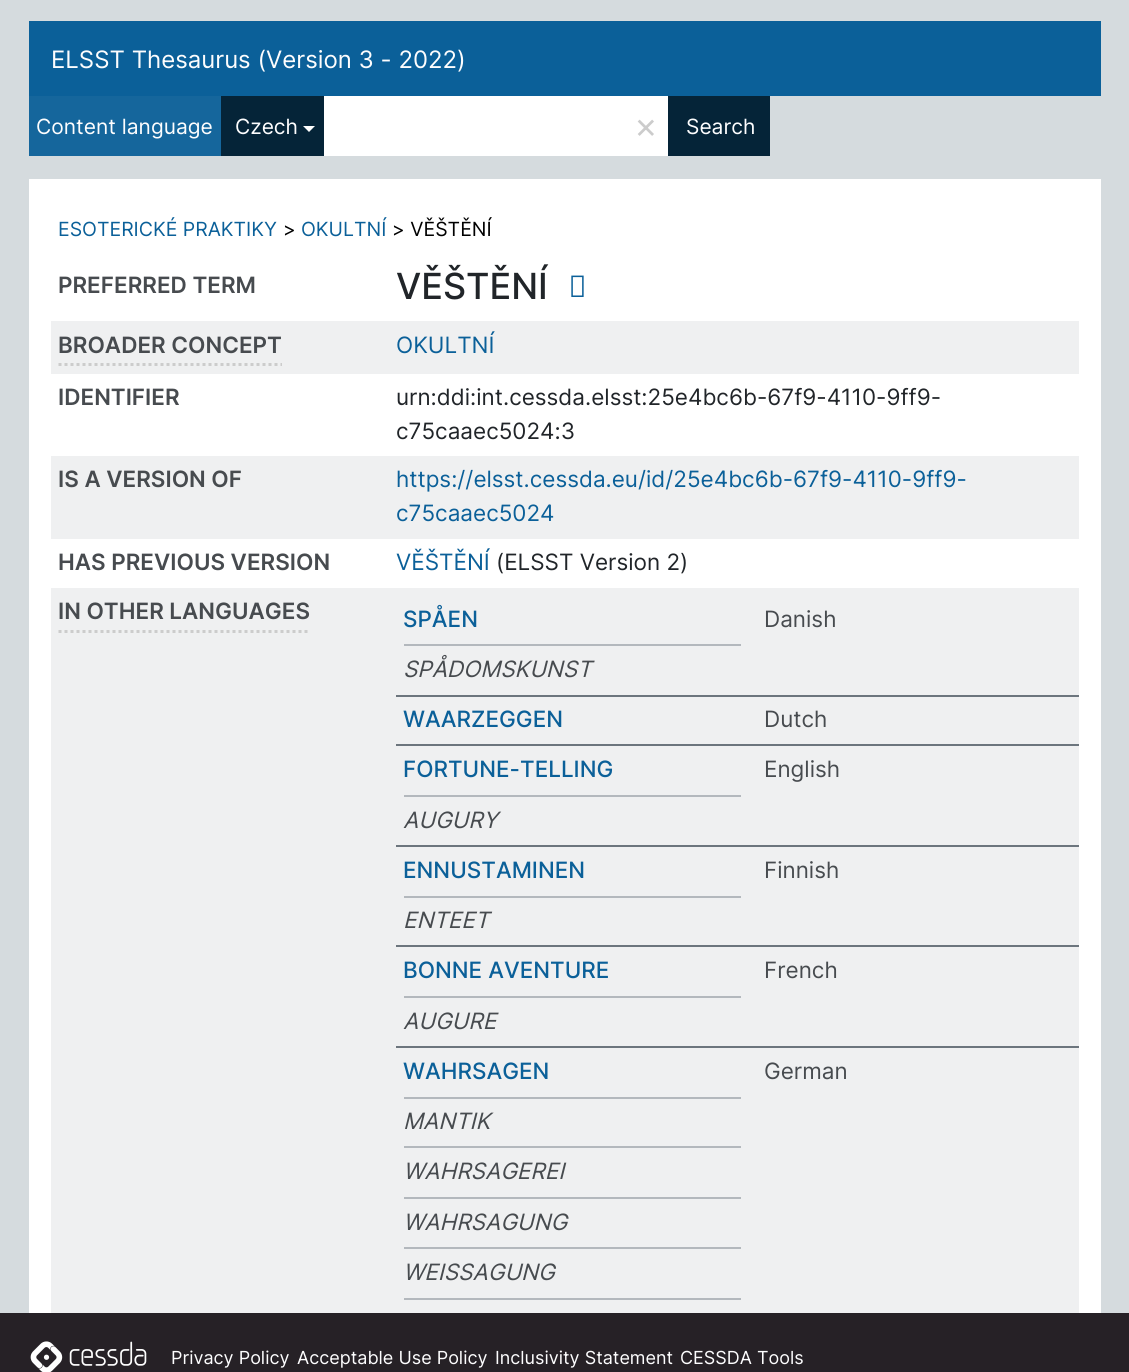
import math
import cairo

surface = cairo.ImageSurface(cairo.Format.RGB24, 1129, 1372)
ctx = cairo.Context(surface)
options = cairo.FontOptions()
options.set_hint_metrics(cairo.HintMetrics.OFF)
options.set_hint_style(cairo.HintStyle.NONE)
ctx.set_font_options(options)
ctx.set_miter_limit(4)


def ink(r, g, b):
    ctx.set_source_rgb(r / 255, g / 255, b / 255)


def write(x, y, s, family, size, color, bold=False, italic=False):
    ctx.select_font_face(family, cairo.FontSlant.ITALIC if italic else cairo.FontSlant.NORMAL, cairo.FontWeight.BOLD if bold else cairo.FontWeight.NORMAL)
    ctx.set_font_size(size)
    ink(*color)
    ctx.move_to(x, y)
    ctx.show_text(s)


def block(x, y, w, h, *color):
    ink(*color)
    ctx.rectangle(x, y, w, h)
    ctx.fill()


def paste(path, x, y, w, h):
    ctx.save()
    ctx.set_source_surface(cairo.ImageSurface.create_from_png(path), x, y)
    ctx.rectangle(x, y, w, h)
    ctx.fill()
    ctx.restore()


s1 = dict(family="Inter", size=24, color=(253, 253, 254))
s2 = dict(family="Inter", size=21, color=(253, 253, 254))
s3 = dict(family="Inter", size=36, color=(204, 204, 204))
s4 = dict(family="Inter", size=19.5, color=(11, 96, 153))
s5 = dict(family="Inter", size=19.5, color=(0, 0, 0))
s6 = dict(family="Inter SemiBold", size=22.5, color=(71, 75, 79))
s7 = dict(family="Inter Medium", size=36, color=(33, 37, 41))
s8 = dict(family="Inter", size=22.5, color=(11, 96, 153))
s9 = dict(family="Inter", size=22.5, color=(33, 37, 41))
s10 = dict(family="Inter Medium", size=22.5, color=(11, 96, 153))
s11 = dict(family="Inter", size=22.5, color=(71, 75, 79))
s12 = dict(family="Inter", size=22.5, color=(71, 75, 79), italic=True)
s13 = dict(family="Inter", size=18, color=(253, 253, 254))

ink(213, 219, 222)
ctx.paint()
block(29, 21, 1072, 75, 11, 96, 153)
write(51, 68, "ELSST Thesaurus (Version 3 - 2022)", **s1)
block(29, 96, 192, 60, 21, 102, 156)
write(36, 134, "Content language", **s2)
block(221, 96, 103, 60, 5, 36, 56)
write(235, 134, "Czech", **s2)
ink(255, 255, 255)
ctx.new_path()
ctx.move_to(303, 126)
ctx.line_to(315, 126)
ctx.line_to(309, 132)
ctx.close_path()
ctx.fill()
block(324, 96, 344, 60, 255, 255, 255)
write(634, 138, "×", **s3)
block(668, 96, 102, 60, 5, 36, 56)
write(686, 134, "Search", **s2)
block(29, 179, 1072, 1134, 255, 255, 255)
write(58, 236, "ESOTERICKÉ PRAKTIKY", **s4)
write(283, 236, ">", **s5)
write(301, 236, "OKULTNÍ", **s4)
write(392, 236, "> VĚŠTĚNÍ", **s5)
write(58, 293, "PREFERRED TERM", **s6)
write(396, 299, "VĚŠTĚNÍ", **s7)
paste("pic1.png", 571, 275, 13, 22)
block(51, 321, 1028, 53, 239, 240, 241)
ctx.new_path()
ctx.move_to(58.5, 364.5)
ctx.line_to(282, 364.5)
ink(204, 204, 204)
ctx.set_line_width(3)
ctx.set_dash([3, 3])
ctx.stroke()
write(58, 353, "BROADER CONCEPT", **s6)
write(396, 353, "OKULTNÍ", **s8)
write(58, 405, "IDENTIFIER", **s6)
write(396, 405, "urn:ddi:int.cessda.elsst:25e4bc6b-67f9-4110-9ff9-", **s9)
write(396, 439, "c75caaec5024:3", **s9)
block(51, 456, 1028, 83, 239, 240, 241)
write(58, 487, "IS A VERSION OF", **s6)
write(396, 487, "https://elsst.cessda.eu/id/25e4bc6b-67f9-4110-9ff9-", **s8)
write(396, 521, "c75caaec5024", **s8)
write(58, 570, "HAS PREVIOUS VERSION", **s6)
write(396, 570, "VĚŠTĚNÍ", **s8)
write(496, 570, "(ELSST Version 2)", **s9)
block(51, 588, 1028, 725, 239, 240, 241)
ctx.new_path()
ctx.move_to(58.5, 631.5)
ctx.line_to(310.5, 631.5)
ink(204, 204, 204)
ctx.stroke()
write(58, 619, "IN OTHER LANGUAGES", **s6)
write(403, 627, "SPÅEN", **s10)
write(764, 627, "Danish", **s11)
block(404, 644, 337, 2, 179, 184, 189)
write(403, 677, "SPÅDOMSKUNST", **s12)
block(396, 695, 683, 2, 108, 117, 125)
write(403, 727, "WAARZEGGEN", **s10)
write(764, 727, "Dutch", **s11)
block(396, 744, 683, 2, 108, 117, 125)
write(403, 777, "FORTUNE-TELLING", **s10)
write(764, 777, "English", **s11)
block(404, 795, 337, 2, 179, 184, 189)
write(403, 828, "AUGURY", **s12)
block(396, 845, 683, 2, 108, 117, 125)
write(403, 878, "ENNUSTAMINEN", **s10)
write(764, 878, "Finnish", **s11)
block(404, 896, 337, 2, 179, 184, 189)
write(403, 928, "ENTEET", **s12)
block(396, 945, 683, 2, 108, 117, 125)
write(403, 978, "BONNE AVENTURE", **s10)
write(764, 978, "French", **s11)
block(404, 996, 337, 2, 179, 184, 189)
write(403, 1029, "AUGURE", **s12)
block(396, 1046, 683, 2, 108, 117, 125)
write(403, 1079, "WAHRSAGEN", **s10)
write(764, 1079, "German", **s11)
block(404, 1097, 337, 2, 179, 184, 189)
write(403, 1129, "MANTIK", **s12)
block(404, 1146, 337, 2, 179, 184, 189)
write(403, 1179, "WAHRSAGEREI", **s12)
block(404, 1197, 337, 2, 179, 184, 189)
write(403, 1230, "WAHRSAGUNG", **s12)
block(404, 1247, 337, 2, 179, 184, 189)
write(403, 1280, "WEISSAGUNG", **s12)
block(404, 1298, 337, 2, 179, 184, 189)
block(0, 1313, 1129, 59, 38, 33, 38)
paste("pic2.png", 30, 1341, 117, 31)
write(171, 1364, "Privacy Policy", **s13)
write(297, 1364, "Acceptable Use Policy", **s13)
write(495, 1364, "Inclusivity Statement", **s13)
write(680, 1364, "CESSDA Tools", **s13)
surface.write_to_png("screenshot.png")
